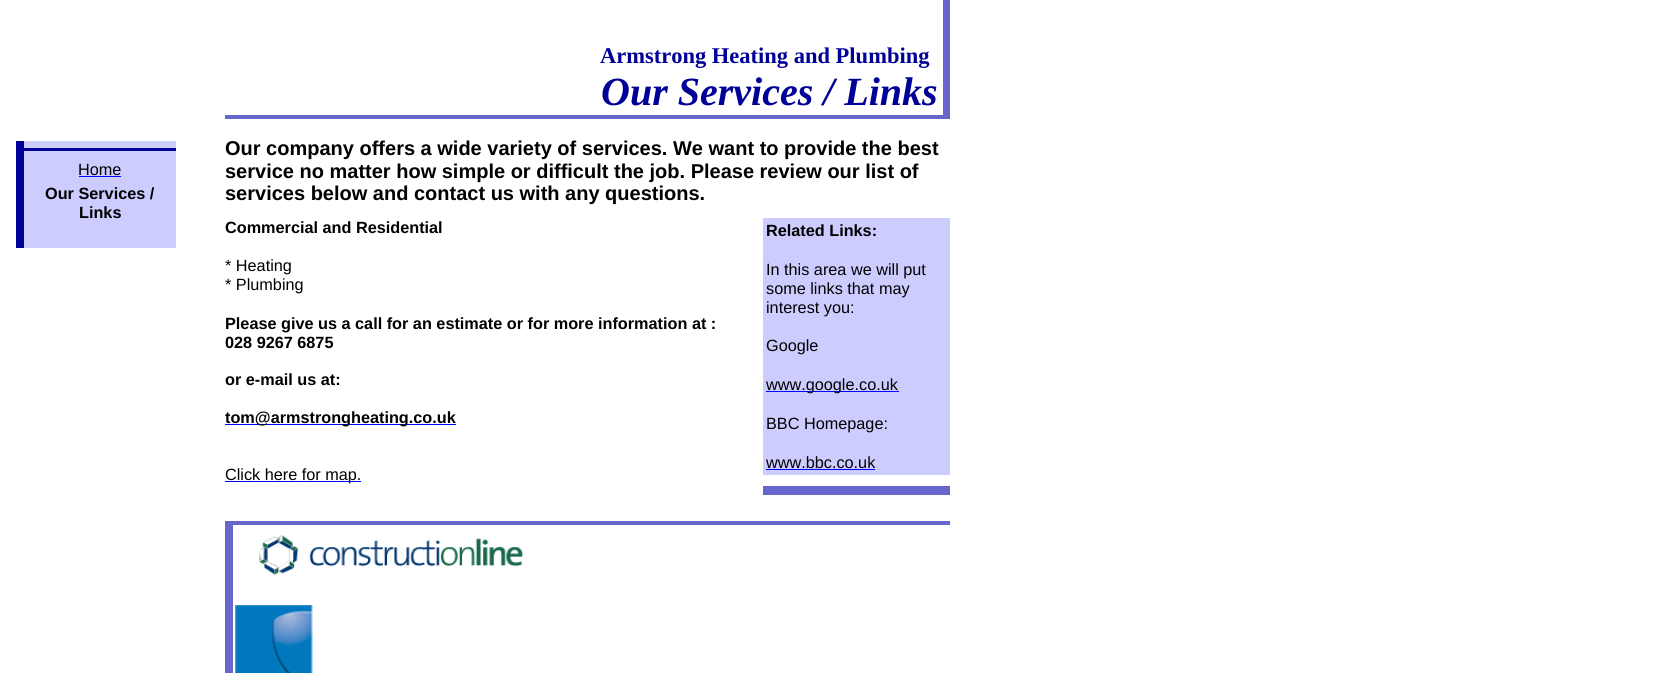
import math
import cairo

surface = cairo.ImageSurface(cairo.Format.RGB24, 1675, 673)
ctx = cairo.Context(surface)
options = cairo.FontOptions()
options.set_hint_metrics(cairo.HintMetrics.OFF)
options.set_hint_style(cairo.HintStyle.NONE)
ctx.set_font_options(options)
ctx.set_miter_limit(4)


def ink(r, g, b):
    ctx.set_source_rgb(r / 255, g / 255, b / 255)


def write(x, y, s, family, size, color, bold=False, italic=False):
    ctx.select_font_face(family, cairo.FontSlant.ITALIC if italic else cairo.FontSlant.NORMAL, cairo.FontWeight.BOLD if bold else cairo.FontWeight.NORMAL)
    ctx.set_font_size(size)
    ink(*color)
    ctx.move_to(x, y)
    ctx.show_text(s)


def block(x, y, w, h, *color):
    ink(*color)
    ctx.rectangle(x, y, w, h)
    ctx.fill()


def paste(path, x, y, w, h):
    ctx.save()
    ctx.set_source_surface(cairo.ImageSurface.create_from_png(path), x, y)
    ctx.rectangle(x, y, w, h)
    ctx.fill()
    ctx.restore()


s1 = dict(family="Liberation Serif", size=22.5, color=(0, 0, 153), bold=True)
s2 = dict(family="Liberation Serif", size=40, color=(0, 0, 153), bold=True, italic=True)
s3 = dict(family="Liberation Sans", size=16.25, color=(0, 0, 0))
s4 = dict(family="Liberation Sans", size=16.25, color=(0, 0, 0), bold=True)
s5 = dict(family="Liberation Sans", size=20, color=(0, 0, 0), bold=True)

ink(255, 255, 255)
ctx.paint()
write(600, 63, "Armstrong Heating and Plumbing", **s1)
write(601, 105, "Our Services / Links", **s2)
block(943, 0, 7, 115, 102, 102, 204)
block(225, 115, 725, 4, 102, 102, 204)
block(16, 141, 8, 107, 0, 0, 153)
block(24, 141, 152, 107, 204, 204, 255)
block(24, 148, 152, 3, 0, 0, 153)
write(78, 175, "Home", **s3)
block(79, 176, 42, 1, 0, 0, 255)
write(45, 199, "Our Services /", **s4)
write(79, 218, "Links", **s4)
write(225, 155, "Our company offers a wide variety of services. We want to provide the best", **s5)
write(225, 178, "service no matter how simple or difficult the job. Please review our list of", **s5)
write(225, 200, "services below and contact us with any questions.", **s5)
write(225, 233, "Commercial and Residential", **s4)
write(225, 271, "* Heating", **s3)
write(225, 290, "* Plumbing", **s3)
write(225, 329, "Please give us a call for an estimate or for more information at :", **s4)
write(225, 348, "028 9267 6875", **s4)
write(225, 385, "or e-mail us at:", **s4)
block(225, 424, 231, 1, 0, 0, 255)
write(225, 423, "tom@armstrongheating.co.uk", **s4)
block(225, 481, 136, 1, 0, 0, 255)
write(225, 480, "Click here for map.", **s3)
block(763, 218, 187, 257, 204, 204, 255)
write(766, 236, "Related Links:", **s4)
write(766, 275, "In this area we will put", **s3)
write(766, 294, "some links that may", **s3)
write(766, 313, "interest you:", **s3)
write(766, 351, "Google", **s3)
block(766, 391, 133, 1, 0, 0, 255)
write(766, 390, "www.google.co.uk", **s3)
write(766, 429, "BBC Homepage:", **s3)
write(766, 468, "www.bbc.co.uk", **s3)
block(766, 469, 109, 1, 0, 0, 255)
block(763, 486, 187, 9, 102, 102, 204)
block(225, 521, 725, 4, 102, 102, 204)
block(225, 525, 8, 148, 102, 102, 204)
paste("pic1.png", 259, 535, 264, 40)
paste("pic2.png", 235, 605, 78, 68)
surface.write_to_png("screenshot.png")
